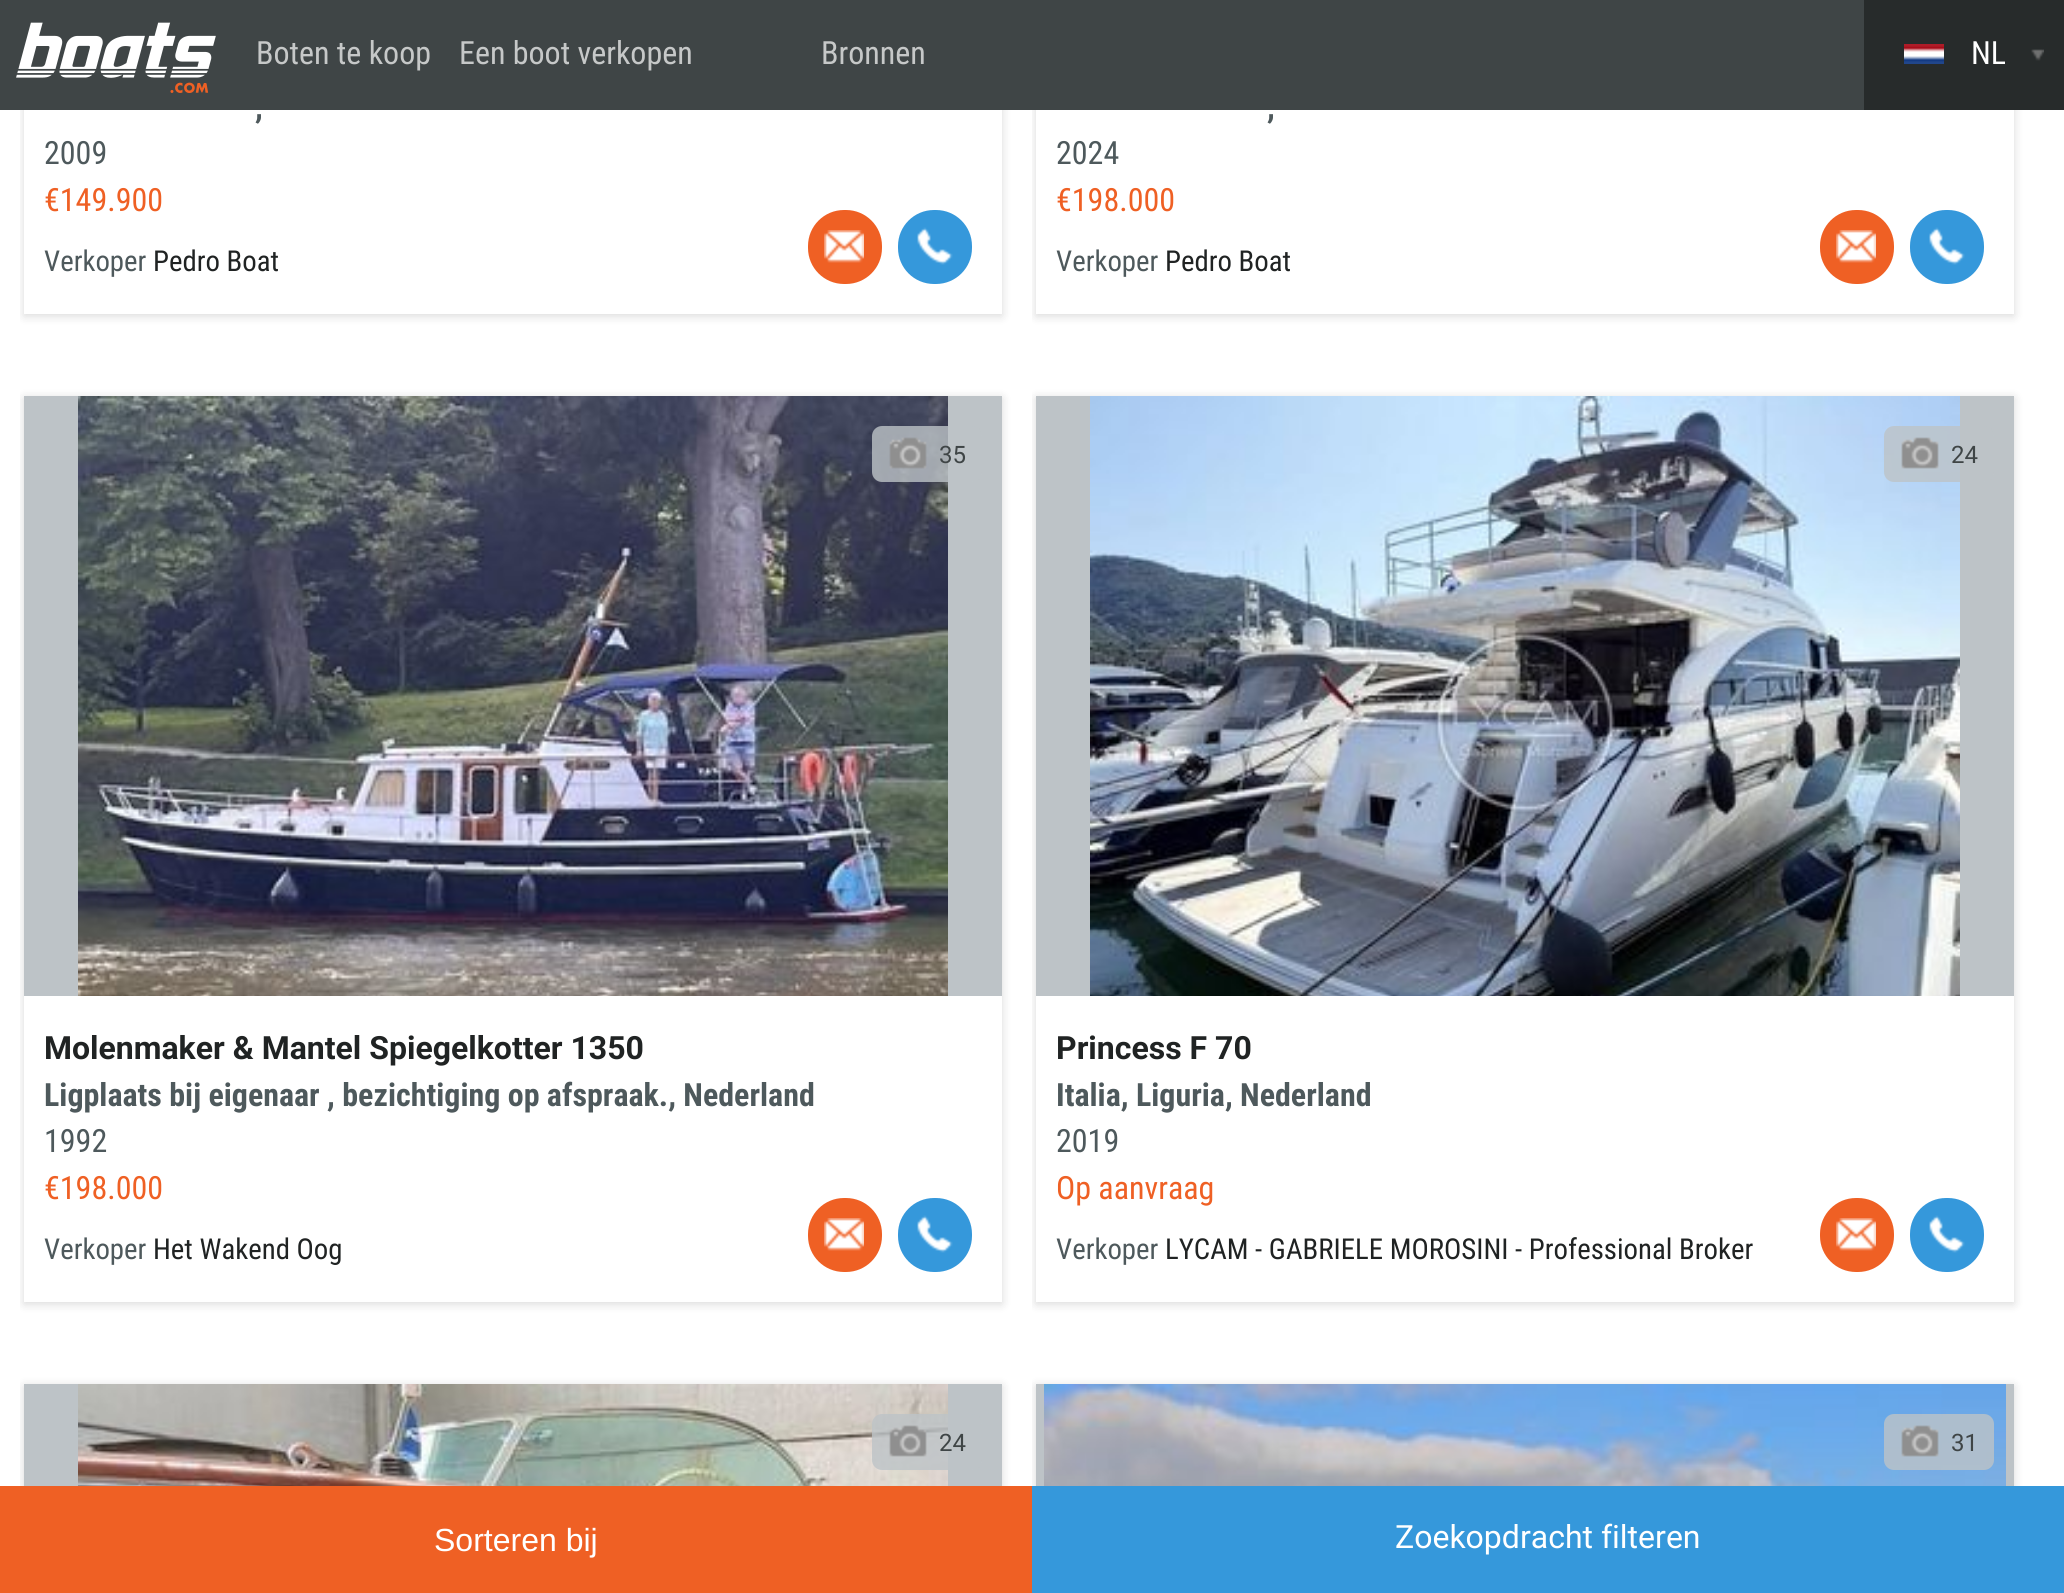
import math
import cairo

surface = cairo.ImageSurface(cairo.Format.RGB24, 2064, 1593)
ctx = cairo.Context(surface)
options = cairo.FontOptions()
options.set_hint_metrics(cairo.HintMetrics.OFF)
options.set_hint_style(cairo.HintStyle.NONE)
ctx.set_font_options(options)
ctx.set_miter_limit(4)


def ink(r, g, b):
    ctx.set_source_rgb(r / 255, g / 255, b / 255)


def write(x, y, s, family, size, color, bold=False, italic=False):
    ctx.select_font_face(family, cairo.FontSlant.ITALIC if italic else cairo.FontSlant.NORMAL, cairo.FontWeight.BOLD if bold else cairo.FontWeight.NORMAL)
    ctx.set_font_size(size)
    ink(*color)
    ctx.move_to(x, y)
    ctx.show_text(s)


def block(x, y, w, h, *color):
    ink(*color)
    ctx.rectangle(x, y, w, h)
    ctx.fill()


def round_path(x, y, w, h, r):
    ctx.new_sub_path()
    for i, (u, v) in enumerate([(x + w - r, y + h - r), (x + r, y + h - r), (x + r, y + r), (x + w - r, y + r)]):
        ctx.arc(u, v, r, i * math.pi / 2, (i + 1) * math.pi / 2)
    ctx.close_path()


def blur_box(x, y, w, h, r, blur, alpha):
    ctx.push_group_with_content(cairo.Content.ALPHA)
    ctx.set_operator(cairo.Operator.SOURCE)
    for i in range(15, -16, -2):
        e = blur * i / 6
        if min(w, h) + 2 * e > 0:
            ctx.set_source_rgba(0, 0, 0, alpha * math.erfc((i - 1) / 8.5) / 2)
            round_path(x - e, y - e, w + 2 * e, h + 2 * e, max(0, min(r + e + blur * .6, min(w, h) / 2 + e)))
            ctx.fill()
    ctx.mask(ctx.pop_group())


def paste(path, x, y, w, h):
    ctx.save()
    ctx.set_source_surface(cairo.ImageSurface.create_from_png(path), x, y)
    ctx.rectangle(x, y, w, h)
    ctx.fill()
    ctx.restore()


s1 = dict(family="Roboto Condensed", size=32, color=(198, 200, 200))
s2 = dict(family="Roboto Condensed", size=32, color=(255, 255, 255))
s3 = dict(family="Roboto Condensed", size=32, color=(78, 89, 92), bold=True)
s4 = dict(family="Roboto Condensed", size=32, color=(78, 89, 92))
s5 = dict(family="Roboto Condensed", size=32, color=(239, 96, 36))
s6 = dict(family="Roboto Condensed", size=28.8, color=(78, 89, 92))
s7 = dict(family="Roboto Condensed", size=28.8, color=(32, 35, 35))
s8 = dict(family="Roboto", size=24, color=(63, 69, 70))
s9 = dict(family="Roboto", size=32, color=(32, 35, 35), bold=True)
s10 = dict(family="Liberation Sans", size=32, color=(255, 255, 255))
s11 = dict(family="Roboto", size=32, color=(255, 255, 255))

ink(255, 255, 255)
ctx.paint()
ctx.save()
ctx.rectangle(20, 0, 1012, 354)
ctx.clip()
ink(0, 0, 0)
blur_box(24, -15, 978, 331, 0, 5, 0.15)
ctx.restore()
ctx.save()
ctx.rectangle(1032, 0, 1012, 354)
ctx.clip()
ink(0, 0, 0)
blur_box(1036, -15, 978, 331, 0, 5, 0.15)
ctx.restore()
block(0, 0, 1864, 110, 63, 69, 70)
paste("pic1.png", 16, 22, 200, 71)
write(256, 64, "Boten te koop", **s1)
write(459, 64, "Een boot verkopen", **s1)
write(821, 64, "Bronnen", **s1)
block(1864, 0, 200, 110, 39, 43, 43)
paste("pic2.png", 1904, 44, 40, 20)
write(1971, 64, "NL", **s2)
paste("pic3.png", 2031, 49, 13, 12)
block(24, 110, 978, 204, 255, 255, 255)
write(255, 118, ",", **s3)
write(44, 164, "2009", **s4)
write(44, 211, "€149.900", **s5)
write(44, 271, "Verkoper", **s6)
write(153, 271, "Pedro Boat", **s7)
ink(239, 96, 36)
round_path(808, 210, 74, 74, 36)
ctx.fill()
paste("pic4.png", 824, 230, 40, 33)
ink(53, 152, 219)
round_path(898, 210, 74, 74, 36)
ctx.fill()
paste("pic5.png", 917, 227, 36, 38)
block(1036, 110, 978, 204, 255, 255, 255)
write(1267, 118, ",", **s3)
write(1056, 164, "2024", **s4)
write(1056, 211, "€198.000", **s5)
write(1056, 271, "Verkoper", **s6)
write(1165, 271, "Pedro Boat", **s7)
ink(239, 96, 36)
round_path(1820, 210, 74, 74, 36)
ctx.fill()
paste("pic4.png", 1836, 230, 40, 33)
ink(53, 152, 219)
round_path(1910, 210, 74, 74, 36)
ctx.fill()
paste("pic5.png", 1929, 227, 36, 38)
ctx.save()
ctx.rectangle(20, 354, 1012, 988)
ctx.clip()
ink(0, 0, 0)
blur_box(24, 398, 978, 906, 0, 5, 0.15)
ctx.restore()
block(24, 396, 978, 600, 189, 195, 199)
paste("pic6.png", 78, 396, 870, 600)
ctx.set_source_rgba(0.741, 0.765, 0.78, 0.8)
round_path(872, 426, 110, 56, 10)
ctx.fill()
paste("pic7.png", 889, 437, 38, 32)
write(939, 463, "35", **s8)
block(24, 996, 978, 306, 255, 255, 255)
write(44, 1059, "Molenmaker & Mantel Spiegelkotter 1350", **s9)
write(44, 1106, "Ligplaats bij eigenaar , bezichtiging op afspraak., Nederland", **s3)
write(44, 1152, "1992", **s4)
write(44, 1199, "€198.000", **s5)
write(44, 1259, "Verkoper", **s6)
write(153, 1259, "Het Wakend Oog", **s7)
ink(239, 96, 36)
round_path(808, 1198, 74, 74, 36)
ctx.fill()
paste("pic4.png", 824, 1218, 40, 33)
ink(53, 152, 219)
round_path(898, 1198, 74, 74, 36)
ctx.fill()
paste("pic5.png", 917, 1215, 36, 38)
ctx.save()
ctx.rectangle(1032, 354, 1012, 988)
ctx.clip()
ink(0, 0, 0)
blur_box(1036, 398, 978, 906, 0, 5, 0.15)
ctx.restore()
block(1036, 396, 978, 600, 189, 195, 199)
paste("pic8.png", 1090, 396, 870, 600)
ctx.set_source_rgba(0.741, 0.765, 0.78, 0.8)
round_path(1884, 426, 110, 56, 10)
ctx.fill()
paste("pic9.png", 1901, 437, 38, 32)
write(1951, 463, "24", **s8)
block(1036, 996, 978, 306, 255, 255, 255)
write(1056, 1059, "Princess F 70", **s9)
write(1056, 1106, "Italia, Liguria, Nederland", **s3)
write(1056, 1152, "2019", **s4)
write(1056, 1199, "Op aanvraag", **s5)
write(1056, 1259, "Verkoper", **s6)
write(1165, 1259, "LYCAM - GABRIELE MOROSINI - Professional Broker", **s7)
ink(239, 96, 36)
round_path(1820, 1198, 74, 74, 36)
ctx.fill()
paste("pic4.png", 1836, 1218, 40, 33)
ink(53, 152, 219)
round_path(1910, 1198, 74, 74, 36)
ctx.fill()
paste("pic5.png", 1929, 1215, 36, 38)
ctx.save()
ctx.rectangle(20, 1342, 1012, 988)
ctx.clip()
ink(0, 0, 0)
blur_box(24, 1386, 978, 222, 0, 5, 0.15)
ctx.restore()
block(24, 1384, 978, 102, 189, 195, 199)
paste("pic10.png", 78, 1384, 870, 102)
ctx.set_source_rgba(0.741, 0.765, 0.78, 0.8)
round_path(872, 1414, 110, 56, 10)
ctx.fill()
paste("pic11.png", 889, 1425, 38, 32)
write(939, 1451, "24", **s8)
ctx.save()
ctx.rectangle(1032, 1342, 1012, 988)
ctx.clip()
ink(0, 0, 0)
blur_box(1036, 1386, 978, 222, 0, 5, 0.15)
ctx.restore()
block(1036, 1384, 978, 102, 189, 195, 199)
paste("pic12.png", 1044, 1384, 962, 102)
ctx.set_source_rgba(0.741, 0.765, 0.78, 0.8)
round_path(1884, 1414, 110, 56, 10)
ctx.fill()
paste("pic13.png", 1901, 1425, 38, 32)
write(1951, 1451, "31", **s8)
block(0, 1486, 1032, 107, 239, 96, 36)
write(434, 1551, "Sorteren bij", **s10)
block(1032, 1486, 1032, 107, 53, 152, 219)
write(1395, 1548, "Zoekopdracht filteren", **s11)
surface.write_to_png("screenshot.png")
